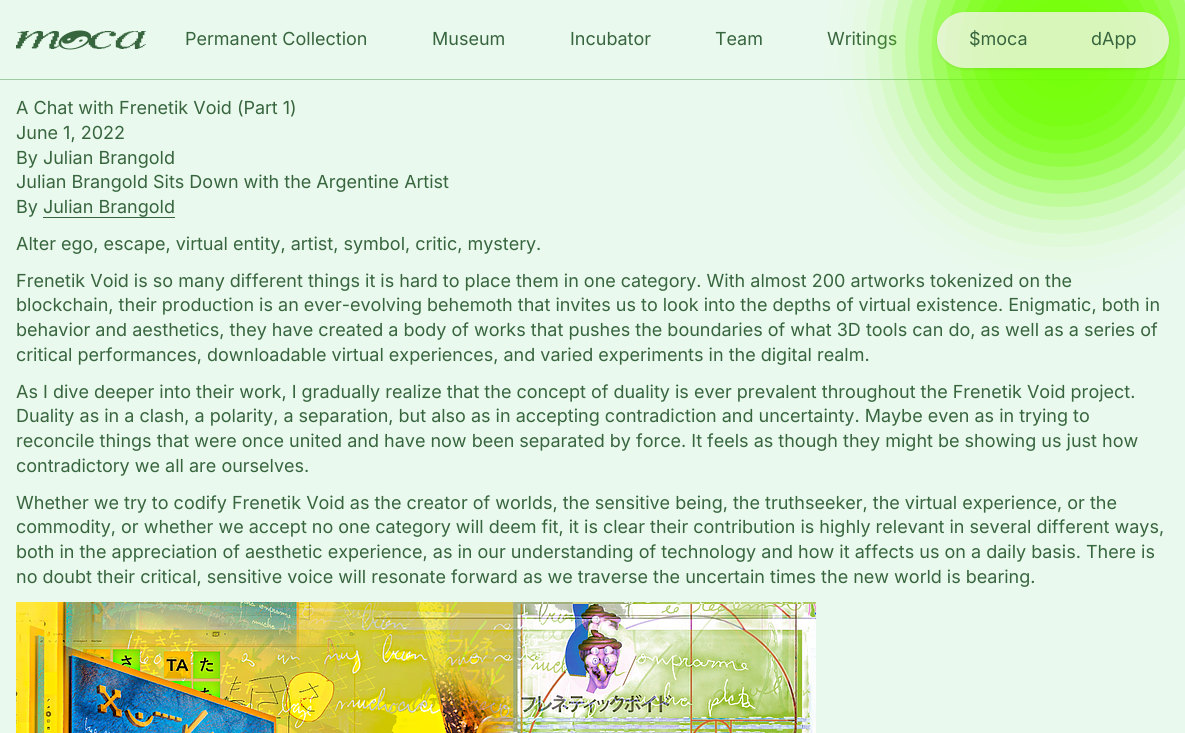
import math
import cairo

surface = cairo.ImageSurface(cairo.Format.RGB24, 1185, 733)
ctx = cairo.Context(surface)
options = cairo.FontOptions()
options.set_hint_metrics(cairo.HintMetrics.OFF)
options.set_hint_style(cairo.HintStyle.NONE)
ctx.set_font_options(options)
ctx.set_miter_limit(4)


def ink(r, g, b):
    ctx.set_source_rgb(r / 255, g / 255, b / 255)


def write(x, y, s, family, size, color, bold=False, italic=False):
    ctx.select_font_face(family, cairo.FontSlant.ITALIC if italic else cairo.FontSlant.NORMAL, cairo.FontWeight.BOLD if bold else cairo.FontWeight.NORMAL)
    ctx.set_font_size(size)
    ink(*color)
    ctx.move_to(x, y)
    ctx.show_text(s)


def block(x, y, w, h, *color):
    ink(*color)
    ctx.rectangle(x, y, w, h)
    ctx.fill()


def round_path(x, y, w, h, r):
    ctx.new_sub_path()
    for i, (u, v) in enumerate([(x + w - r, y + h - r), (x + r, y + h - r), (x + r, y + r), (x + w - r, y + r)]):
        ctx.arc(u, v, r, i * math.pi / 2, (i + 1) * math.pi / 2)
    ctx.close_path()


def blur_box(x, y, w, h, r, blur, alpha):
    ctx.push_group_with_content(cairo.Content.ALPHA)
    ctx.set_operator(cairo.Operator.SOURCE)
    for i in range(15, -16, -2):
        e = blur * i / 6
        if min(w, h) + 2 * e > 0:
            ctx.set_source_rgba(0, 0, 0, alpha * math.erfc((i - 1) / 8.5) / 2)
            round_path(x - e, y - e, w + 2 * e, h + 2 * e, max(0, min(r + e + blur * .6, min(w, h) / 2 + e)))
            ctx.fill()
    ctx.mask(ctx.pop_group())


def paste(path, x, y, w, h):
    ctx.save()
    ctx.set_source_surface(cairo.ImageSurface.create_from_png(path), x, y)
    ctx.rectangle(x, y, w, h)
    ctx.fill()
    ctx.restore()


s1 = dict(family="Inter", size=18, color=(55, 101, 62))

ink(234, 249, 237)
ctx.paint()
block(0, 79, 1185, 1, 156, 203, 164)
paste("pic1.png", 16, 30, 130, 20)
write(185, 45, "Permanent Collection", **s1)
write(432, 45, "Museum", **s1)
write(570, 45, "Incubator", **s1)
write(715, 45, "Team", **s1)
write(827, 45, "Writings", **s1)
ink(112, 255, 0)
blur_box(925, -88, 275, 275, 137.5, 40, 0.95)
ctx.save()
ctx.set_fill_rule(cairo.FillRule.EVEN_ODD)
ctx.new_path()
ctx.move_to(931, 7)
ctx.line_to(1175, 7)
ctx.line_to(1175, 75)
ctx.line_to(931, 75)
ctx.close_path()
ctx.move_to(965, 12)
ctx.line_to(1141, 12)
ctx.curve_to(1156.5, 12, 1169, 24.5, 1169, 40)
ctx.curve_to(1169, 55.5, 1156.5, 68, 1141, 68)
ctx.line_to(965, 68)
ctx.curve_to(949.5, 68, 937, 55.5, 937, 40)
ctx.curve_to(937, 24.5, 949.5, 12, 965, 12)
ctx.close_path()
ctx.clip()
ink(0, 0, 0)
blur_box(937, 13, 232, 56, 28, 1.5, 0.1)
ctx.restore()
ctx.set_source_rgba(0.969, 0.949, 0.949, 0.75)
round_path(937, 12, 232, 56, 28)
ctx.fill()
write(969, 45, "$moca", **s1)
write(1091, 45, "dApp", **s1)
write(16, 114, "A Chat with Frenetik Void (Part 1)", **s1)
write(16, 139, "June 1, 2022", **s1)
write(16, 164, "By Julian Brangold", **s1)
write(16, 188, "Julian Brangold Sits Down with the Argentine Artist", **s1)
write(16, 213, "By Julian Brangold", **s1)
block(43, 217, 132, 1, 55, 101, 62)
write(16, 250, "Alter ego, escape, virtual entity, artist, symbol, critic, mystery.", **s1)
write(16, 287, "Frenetik Void is so many different things it is hard to place them in one category. With almost 200 artworks tokenized on the", **s1)
write(16, 311, "blockchain, their production is an ever-evolving behemoth that invites us to look into the depths of virtual existence. Enigmatic, both in", **s1)
write(16, 336, "behavior and aesthetics, they have created a body of works that pushes the boundaries of what 3D tools can do, as well as a series of", **s1)
write(16, 361, "critical performances, downloadable virtual experiences, and varied experiments in the digital realm.", **s1)
write(16, 398, "As I dive deeper into their work, I gradually realize that the concept of duality is ever prevalent throughout the Frenetik Void project.", **s1)
write(16, 422, "Duality as in a clash, a polarity, a separation, but also as in accepting contradiction and uncertainty. Maybe even as in trying to", **s1)
write(16, 447, "reconcile things that were once united and have now been separated by force. It feels as though they might be showing us just how", **s1)
write(16, 472, "contradictory we all are ourselves.", **s1)
write(16, 509, "Whether we try to codify Frenetik Void as the creator of worlds, the sensitive being, the truthseeker, the virtual experience, or the", **s1)
write(16, 533, "commodity, or whether we accept no one category will deem fit, it is clear their contribution is highly relevant in several different ways,", **s1)
write(16, 558, "both in the appreciation of aesthetic experience, as in our understanding of technology and how it affects us on a daily basis. There is", **s1)
write(16, 583, "no doubt their critical, sensitive voice will resonate forward as we traverse the uncertain times the new world is bearing.", **s1)
paste("pic2.png", 16, 602, 800, 131)
surface.write_to_png("screenshot.png")
